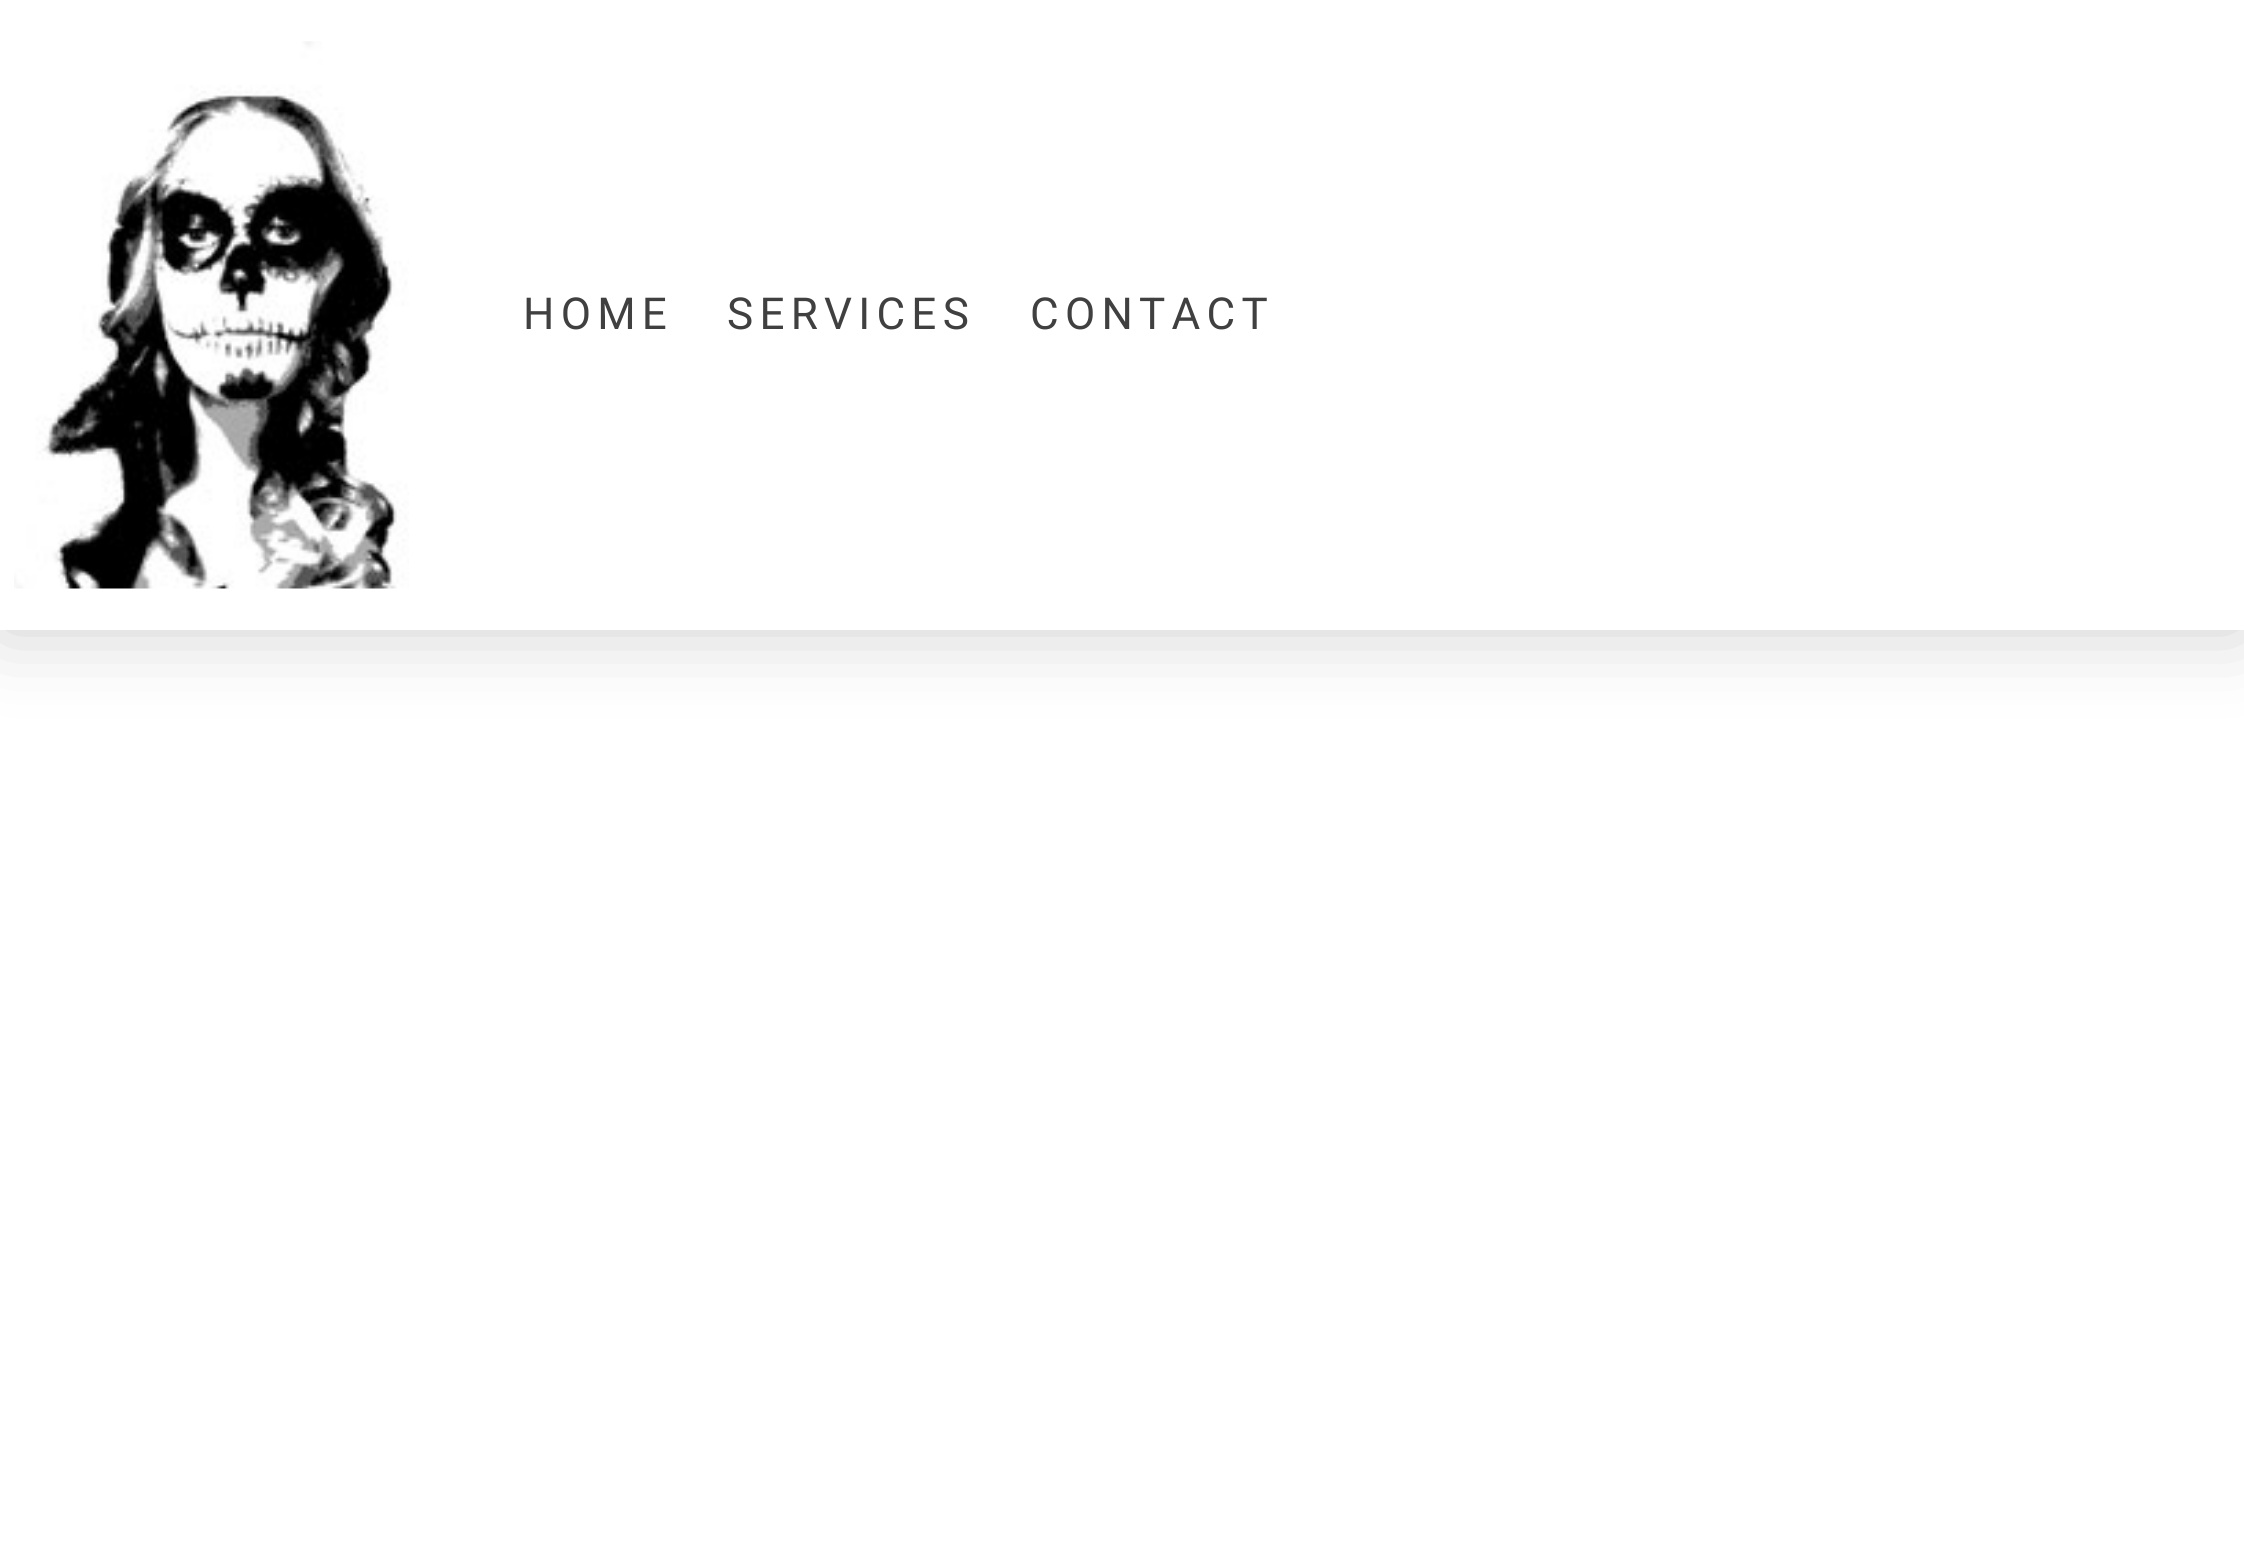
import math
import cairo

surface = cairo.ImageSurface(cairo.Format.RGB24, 2244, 1552)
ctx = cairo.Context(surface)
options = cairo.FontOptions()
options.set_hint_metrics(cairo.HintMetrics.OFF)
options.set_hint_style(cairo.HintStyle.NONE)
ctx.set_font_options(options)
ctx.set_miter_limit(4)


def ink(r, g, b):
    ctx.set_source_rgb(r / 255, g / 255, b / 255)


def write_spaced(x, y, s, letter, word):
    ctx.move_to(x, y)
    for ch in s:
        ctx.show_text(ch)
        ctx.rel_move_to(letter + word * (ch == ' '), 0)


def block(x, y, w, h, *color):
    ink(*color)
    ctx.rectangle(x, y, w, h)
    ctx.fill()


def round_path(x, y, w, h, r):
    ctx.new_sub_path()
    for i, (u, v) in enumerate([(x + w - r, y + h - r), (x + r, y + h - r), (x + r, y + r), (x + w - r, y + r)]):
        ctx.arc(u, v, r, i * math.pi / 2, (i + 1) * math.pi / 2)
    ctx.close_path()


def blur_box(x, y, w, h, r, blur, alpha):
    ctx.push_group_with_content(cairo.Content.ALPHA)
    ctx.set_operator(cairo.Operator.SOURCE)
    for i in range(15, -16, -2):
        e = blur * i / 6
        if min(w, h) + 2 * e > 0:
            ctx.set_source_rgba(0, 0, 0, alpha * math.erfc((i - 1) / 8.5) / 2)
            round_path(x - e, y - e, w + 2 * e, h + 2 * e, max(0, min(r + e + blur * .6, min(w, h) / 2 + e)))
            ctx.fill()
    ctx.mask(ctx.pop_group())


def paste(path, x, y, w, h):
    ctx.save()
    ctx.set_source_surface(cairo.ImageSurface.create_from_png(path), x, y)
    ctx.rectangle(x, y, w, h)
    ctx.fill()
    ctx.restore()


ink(255, 255, 255)
ctx.paint()
ink(0, 0, 0)
blur_box(0, 0, 2244, 630, 0, 41, 0.2)
block(0, 0, 2244, 630, 255, 255, 255)
paste("pic1.png", 14, 41, 395, 548)
ctx.select_font_face("Roboto")
ctx.set_font_size(44)
ink(64, 64, 64)
write_spaced(523, 329, "HOME", 6.25, 0)
write_spaced(727, 329, "SERVICES", 6.25, 0)
write_spaced(1030, 329, "CONTACT", 6.25, 0)
surface.write_to_png("screenshot.png")
